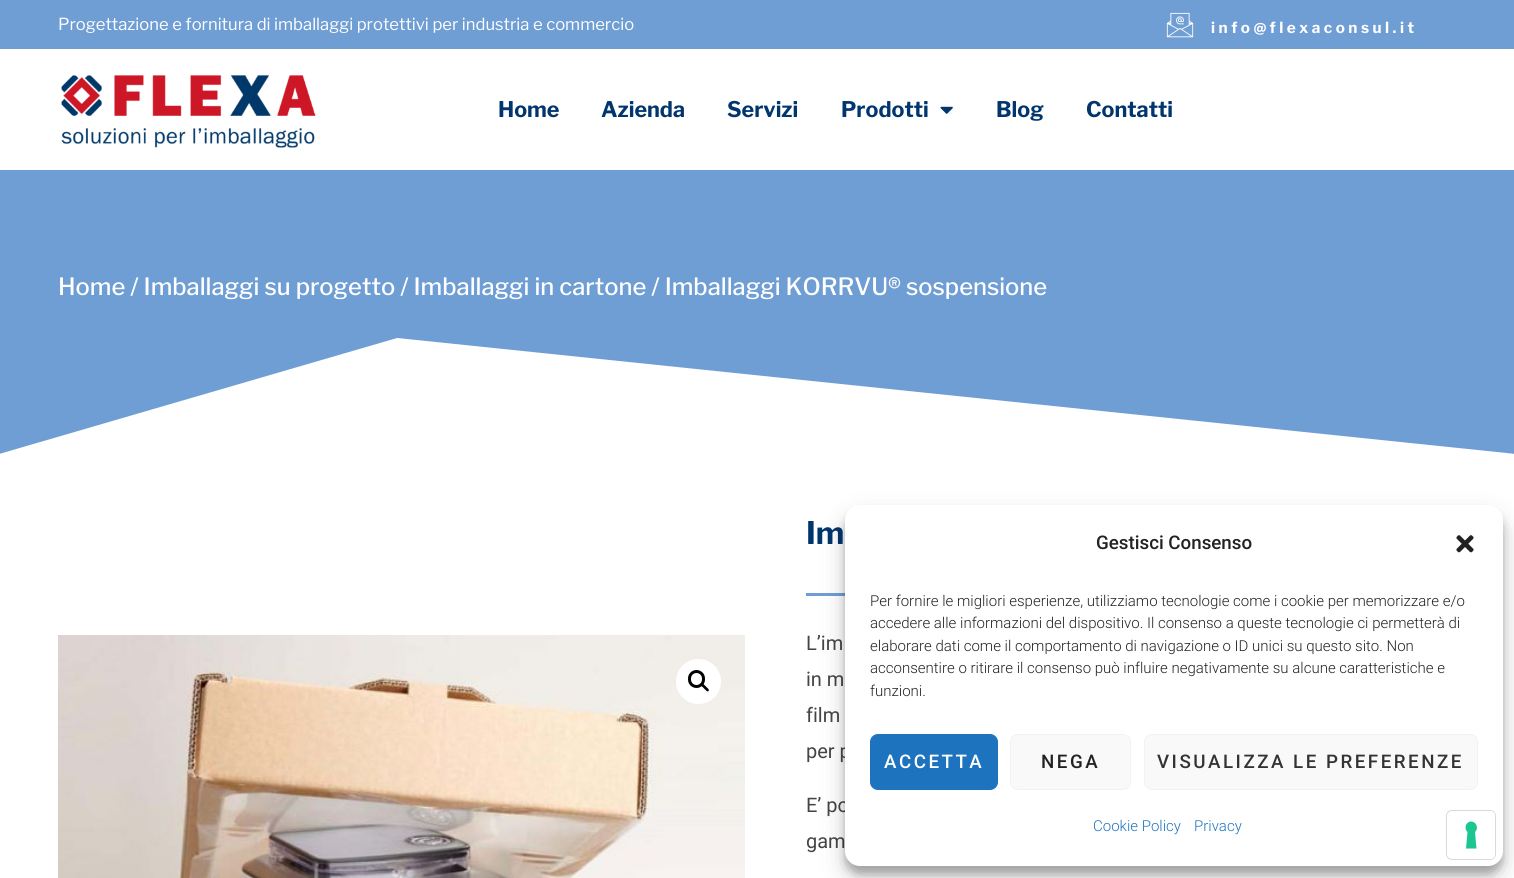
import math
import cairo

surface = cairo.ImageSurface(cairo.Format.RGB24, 1514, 878)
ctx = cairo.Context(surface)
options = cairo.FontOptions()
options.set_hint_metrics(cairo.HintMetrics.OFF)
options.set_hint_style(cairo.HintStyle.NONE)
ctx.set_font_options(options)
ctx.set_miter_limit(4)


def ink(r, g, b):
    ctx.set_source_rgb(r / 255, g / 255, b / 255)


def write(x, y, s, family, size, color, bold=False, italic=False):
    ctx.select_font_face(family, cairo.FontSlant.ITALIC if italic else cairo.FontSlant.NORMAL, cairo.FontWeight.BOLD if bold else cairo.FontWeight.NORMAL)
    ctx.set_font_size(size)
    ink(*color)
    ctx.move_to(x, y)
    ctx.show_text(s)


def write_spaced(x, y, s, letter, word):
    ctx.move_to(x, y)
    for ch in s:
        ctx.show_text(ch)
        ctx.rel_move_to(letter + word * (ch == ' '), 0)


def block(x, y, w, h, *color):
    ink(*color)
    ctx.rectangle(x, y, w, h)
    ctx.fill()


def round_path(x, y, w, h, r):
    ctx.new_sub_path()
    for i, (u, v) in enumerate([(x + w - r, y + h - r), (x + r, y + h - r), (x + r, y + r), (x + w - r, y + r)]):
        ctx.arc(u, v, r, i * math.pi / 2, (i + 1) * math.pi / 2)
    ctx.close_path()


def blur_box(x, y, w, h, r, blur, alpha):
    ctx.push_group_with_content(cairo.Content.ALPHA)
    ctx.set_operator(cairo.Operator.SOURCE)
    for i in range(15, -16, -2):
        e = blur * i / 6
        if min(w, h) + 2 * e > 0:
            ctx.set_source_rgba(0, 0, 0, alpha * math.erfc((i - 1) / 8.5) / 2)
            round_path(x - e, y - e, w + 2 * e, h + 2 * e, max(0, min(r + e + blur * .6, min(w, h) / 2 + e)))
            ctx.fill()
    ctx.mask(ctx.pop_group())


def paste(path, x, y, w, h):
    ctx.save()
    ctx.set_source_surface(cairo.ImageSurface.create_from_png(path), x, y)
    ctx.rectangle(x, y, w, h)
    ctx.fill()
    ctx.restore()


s1 = dict(family="Libre Franklin", size=16.6, color=(255, 255, 255))
s2 = dict(family="Libre Franklin", size=21.5, color=(1, 53, 110), bold=True)
s3 = dict(family="Libre Franklin Medium", size=23.75, color=(255, 255, 255))
s4 = dict(family="Libre Franklin", size=31, color=(1, 53, 110), bold=True)
s5 = dict(family="Roboto", size=20, color=(69, 69, 69))
s6 = dict(family="Roboto Medium", size=18.75, color=(34, 34, 34))
s7 = dict(family="Roboto Light", size=15, color=(34, 34, 34))
s8 = dict(family="Roboto Light", size=15, color=(30, 115, 190))

ink(255, 255, 255)
ctx.paint()
block(0, 0, 1514, 49, 111, 158, 212)
write(58, 30, "Progettazione e fornitura di imballaggi protettivi per industria e commercio", **s1)
paste("pic1.png", 1166, 12, 28, 26)
ctx.select_font_face("Libre Franklin", cairo.FontSlant.NORMAL, cairo.FontWeight.BOLD)
ctx.set_font_size(15.25)
write_spaced(1211, 33, "info@flexaconsul.it", 3.5, 0)
paste("pic2.png", 61, 75, 255, 73)
write(498, 117, "Home", **s2)
write(601, 117, "Azienda", **s2)
write(727, 117, "Servizi", **s2)
write(841, 117, "Prodotti", **s2)
paste("pic3.png", 940, 106, 13, 8)
write(996, 117, "Blog", **s2)
write(1086, 117, "Contatti", **s2)
block(0, 170, 1514, 284, 111, 158, 212)
write(58, 295, "Home / Imballaggi su progetto / Imballaggi in cartone / Imballaggi KORRVU® sospensione", **s3)
ctx.new_path()
ctx.move_to(397, 338)
ctx.line_to(-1, 454)
ctx.line_to(-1, 461)
ctx.line_to(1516, 461)
ctx.line_to(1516, 454)
ctx.close_path()
ctx.fill()
paste("pic4.png", 58, 635, 687, 243)
ctx.arc(698.5, 681.5, 22.5, 0, 2 * math.pi)
ctx.fill()
round_path(689.5, 671.5, 14, 15, 7)
ink(0, 0, 0)
ctx.set_line_width(3)
ctx.stroke()
ctx.new_path()
ctx.move_to(701.5, 684)
ctx.curve_to(703, 682.5, 705, 686, 706, 686.5)
ctx.curve_to(706.5, 687.5, 710, 689.5, 708.5, 691)
ctx.curve_to(707, 692.5, 705, 689, 704, 688.5)
ctx.curve_to(703.5, 687.5, 700, 685.5, 701.5, 684)
ctx.close_path()
ctx.fill()
write(806, 544, "Im", **s4)
block(806, 593, 39, 3, 111, 158, 212)
write(806, 650, "L’im", **s5)
write(806, 686, "in m", **s5)
write(806, 722, "film", **s5)
write(806, 758, "per p", **s5)
write(806, 812, "E’ po", **s5)
write(806, 848, "gam", **s5)
ink(0, 0, 0)
blur_box(845, 513, 658, 361, 15, 4, 0.23)
blur_box(845, 518, 658, 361, 15, 12.5, 0.19)
ink(255, 255, 255)
round_path(845, 505, 658, 361, 15)
ctx.fill()
write(1096, 549, "Gestisci Consenso", **s6)
paste("pic5.png", 1456, 535, 18, 18)
write(870, 606, "Per fornire le migliori esperienze, utilizziamo tecnologie come i cookie per memorizzare e/o", **s7)
write(870, 628, "accedere alle informazioni del dispositivo. Il consenso a queste tecnologie ci permetterà di", **s7)
write(870, 651, "elaborare dati come il comportamento di navigazione o ID unici su questo sito. Non", **s7)
write(870, 673, "acconsentire o ritirare il consenso può influire negativamente su alcune caratteristiche e", **s7)
write(870, 696, "funzioni.", **s7)
ink(30, 115, 190)
round_path(870.5, 734.5, 127, 55, 7.5)
ctx.fill_preserve()
ctx.set_line_width(1)
ctx.stroke()
ctx.select_font_face("Roboto Medium")
ctx.set_font_size(18.75)
ink(255, 255, 255)
write_spaced(884, 768, "ACCETTA", 2.5, 0)
ink(249, 249, 249)
round_path(1010.5, 734.5, 120, 55, 7.5)
ctx.fill_preserve()
ink(242, 242, 242)
ctx.stroke()
ink(34, 34, 34)
write_spaced(1041, 768, "NEGA", 2.5, 0)
ink(249, 249, 249)
round_path(1144.5, 734.5, 333, 55, 7.5)
ctx.fill_preserve()
ink(242, 242, 242)
ctx.stroke()
ink(51, 51, 51)
write_spaced(1157, 768, "VISUALIZZA LE PREFERENZE", 2.5, 0)
write(1093, 831, "Cookie Policy", **s8)
write(1194, 831, "Privacy", **s8)
round_path(1446.5, 810.5, 49, 49, 5.5)
ink(217, 217, 217)
ctx.stroke()
ink(255, 255, 255)
round_path(1448, 811, 47, 48, 5)
ctx.fill()
ink(28, 198, 145)
ctx.set_fill_rule(cairo.FillRule.EVEN_ODD)
ctx.new_path()
ctx.move_to(1471, 821.5)
ctx.curve_to(1476.5, 821.5, 1479, 828.5, 1475, 832)
ctx.line_to(1476.5, 848.5)
ctx.line_to(1466, 848.5)
ctx.line_to(1467.5, 832)
ctx.curve_to(1463.5, 828.5, 1466, 821.5, 1471, 821.5)
ctx.close_path()
ctx.fill()
surface.write_to_png("screenshot.png")
